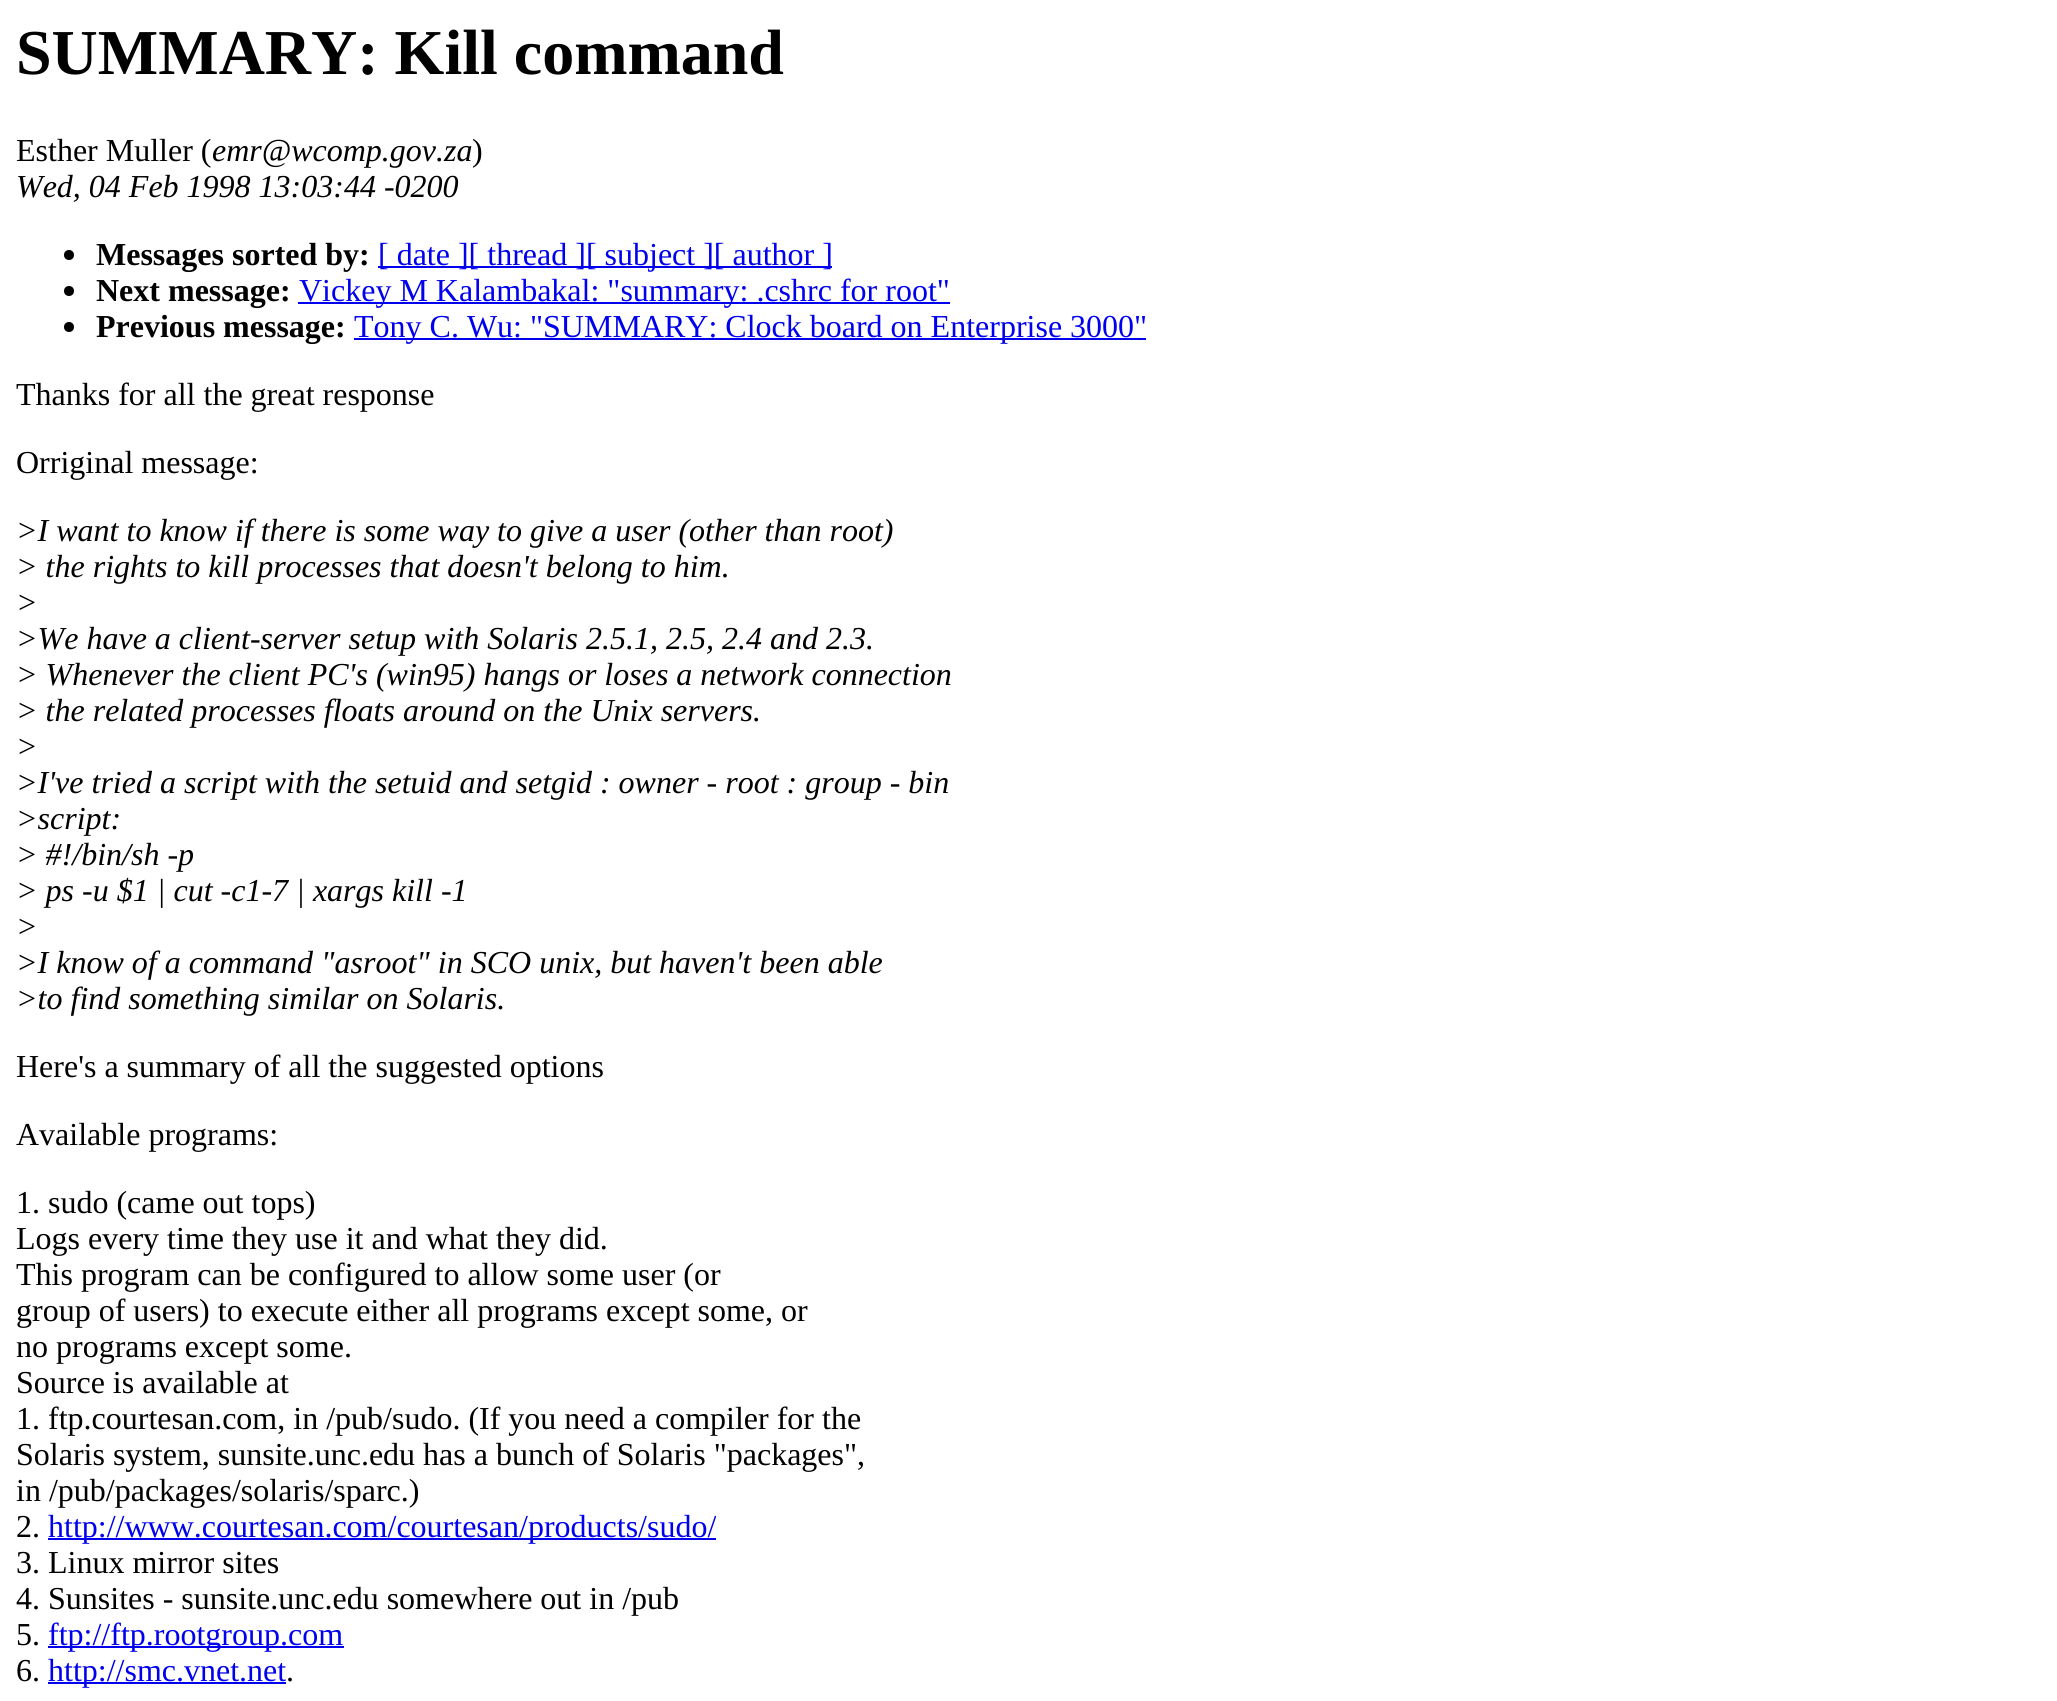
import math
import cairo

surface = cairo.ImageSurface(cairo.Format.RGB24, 2057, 1701)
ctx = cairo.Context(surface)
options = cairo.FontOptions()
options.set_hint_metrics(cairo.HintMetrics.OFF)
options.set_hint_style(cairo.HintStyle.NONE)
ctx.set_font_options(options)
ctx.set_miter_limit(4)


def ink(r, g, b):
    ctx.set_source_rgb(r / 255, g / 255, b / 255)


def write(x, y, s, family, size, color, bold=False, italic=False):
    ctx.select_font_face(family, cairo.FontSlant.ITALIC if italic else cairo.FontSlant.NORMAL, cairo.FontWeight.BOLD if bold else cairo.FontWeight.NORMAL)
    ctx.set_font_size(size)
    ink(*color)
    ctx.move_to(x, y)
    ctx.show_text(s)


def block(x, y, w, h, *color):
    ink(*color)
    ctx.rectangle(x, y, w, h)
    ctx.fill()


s1 = dict(family="Liberation Serif", size=64, color=(0, 0, 0), bold=True)
s2 = dict(family="Liberation Serif", size=32, color=(0, 0, 0))
s3 = dict(family="Liberation Serif", size=32, color=(0, 0, 0), italic=True)
s4 = dict(family="Liberation Serif", size=32, color=(0, 0, 0), bold=True)
s5 = dict(family="Liberation Serif", size=32, color=(0, 0, 238))

ink(255, 255, 255)
ctx.paint()
write(16, 74, "SUMMARY: Kill command", **s1)
write(16, 161, "Esther Muller (", **s2)
write(212, 161, "emr@wcomp.gov.za", **s3)
write(472, 161, ")", **s2)
write(16, 197, "Wed, 04 Feb 1998 13:03:44 -0200", **s3)
ctx.new_path()
ctx.arc(69, 255, 5, 0, 2 * math.pi)
ctx.fill()
write(96, 265, "Messages sorted by:", **s4)
block(378, 266, 454, 2, 0, 0, 238)
write(378, 265, "[ date ][ thread ][ subject ][ author ]", **s5)
ink(0, 0, 0)
ctx.new_path()
ctx.arc(69, 291, 5, 0, 2 * math.pi)
ctx.fill()
write(96, 301, "Next message:", **s4)
block(298, 302, 652, 2, 0, 0, 238)
write(299, 301, "Vickey M Kalambakal: \"summary: .cshrc for root\"", **s5)
ink(0, 0, 0)
ctx.new_path()
ctx.arc(69, 327, 5, 0, 2 * math.pi)
ctx.fill()
write(96, 337, "Previous message:", **s4)
block(354, 338, 792, 2, 0, 0, 238)
write(354, 337, "Tony C. Wu: \"SUMMARY: Clock board on Enterprise 3000\"", **s5)
write(16, 405, "Thanks for all the great response", **s2)
write(16, 473, "Orriginal message:", **s2)
write(16, 541, ">I want to know if there is some way to give a user (other than root)", **s3)
write(16, 577, "> the rights to kill processes that doesn't belong to him.", **s3)
write(16, 613, ">", **s3)
write(16, 649, ">We have a client-server setup with Solaris 2.5.1, 2.5, 2.4 and 2.3.", **s3)
write(16, 685, "> Whenever the client PC's (win95) hangs or loses a network connection", **s3)
write(16, 721, "> the related processes floats around on the Unix servers.", **s3)
write(16, 757, ">", **s3)
write(16, 793, ">I've tried a script with the setuid and setgid : owner - root : group - bin", **s3)
write(16, 829, ">script:", **s3)
write(16, 865, "> #!/bin/sh -p", **s3)
write(16, 901, "> ps -u $1 | cut -c1-7 | xargs kill -1", **s3)
write(16, 937, ">", **s3)
write(16, 973, ">I know of a command \"asroot\" in SCO unix, but haven't been able", **s3)
write(16, 1009, ">to find something similar on Solaris.", **s3)
write(16, 1077, "Here's a summary of all the suggested options", **s2)
write(16, 1145, "Available programs:", **s2)
write(16, 1213, "1. sudo (came out tops)", **s2)
write(16, 1249, "Logs every time they use it and what they did.", **s2)
write(16, 1285, "This program can be configured to allow some user (or", **s2)
write(16, 1321, "group of users) to execute either all programs except some, or", **s2)
write(16, 1357, "no programs except some.", **s2)
write(16, 1393, "Source is available at", **s2)
write(16, 1429, "1. ftp.courtesan.com, in /pub/sudo. (If you need a compiler for the", **s2)
write(16, 1465, "Solaris system, sunsite.unc.edu has a bunch of Solaris \"packages\",", **s2)
write(16, 1501, "in /pub/packages/solaris/sparc.)", **s2)
write(16, 1537, "2.", **s2)
block(48, 1538, 668, 2, 0, 0, 238)
write(48, 1537, "http://www.courtesan.com/courtesan/products/sudo/", **s5)
write(16, 1573, "3. Linux mirror sites", **s2)
write(16, 1609, "4. Sunsites - sunsite.unc.edu somewhere out in /pub", **s2)
write(16, 1645, "5.", **s2)
block(48, 1646, 296, 2, 0, 0, 238)
write(48, 1645, "ftp://ftp.rootgroup.com", **s5)
write(16, 1681, "6.", **s2)
block(48, 1682, 238, 2, 0, 0, 238)
write(48, 1681, "http://smc.vnet.net", **s5)
write(286, 1681, ".", **s2)
surface.write_to_png("screenshot.png")
